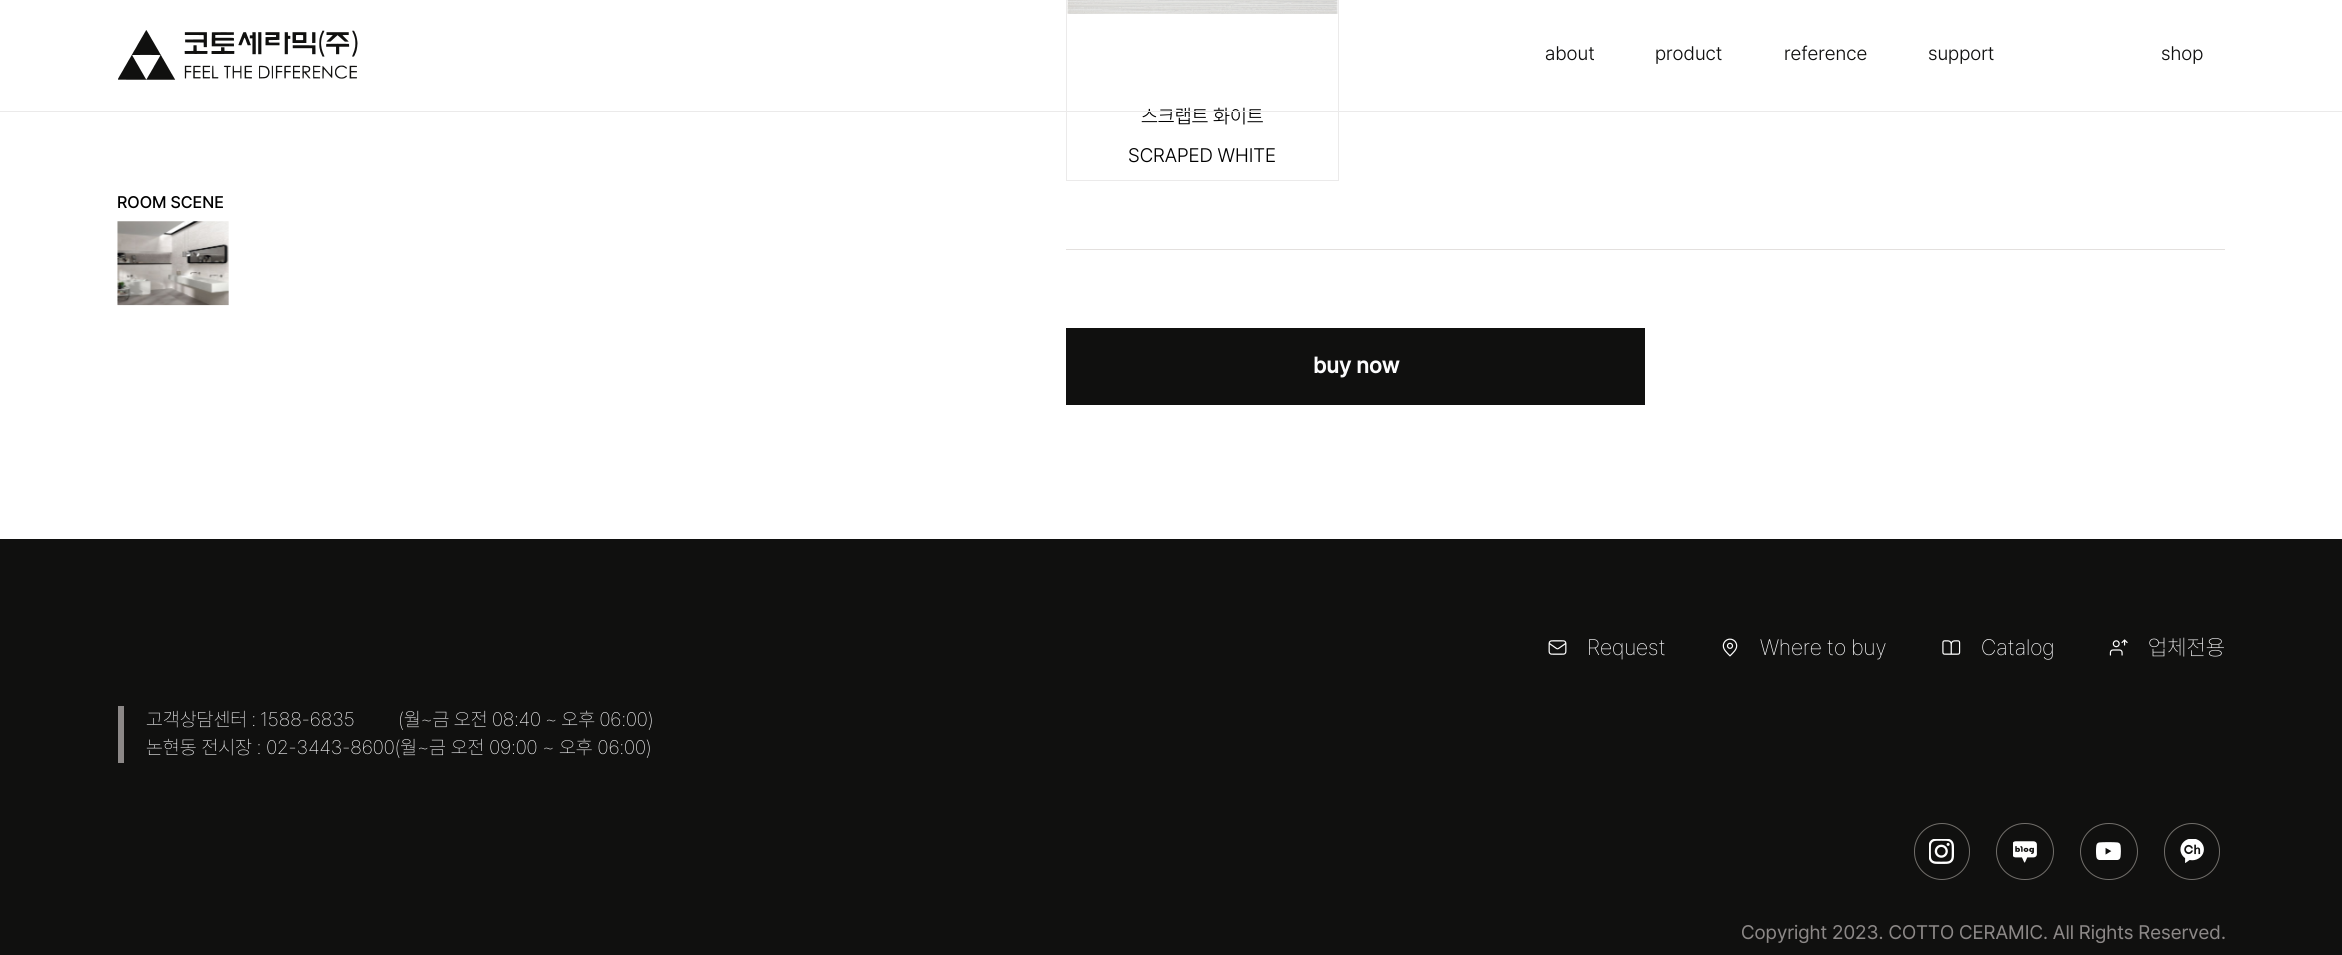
import math
import cairo

surface = cairo.ImageSurface(cairo.Format.RGB24, 2342, 955)
ctx = cairo.Context(surface)
options = cairo.FontOptions()
options.set_hint_metrics(cairo.HintMetrics.OFF)
options.set_hint_style(cairo.HintStyle.NONE)
ctx.set_font_options(options)
ctx.set_miter_limit(4)


def ink(r, g, b):
    ctx.set_source_rgb(r / 255, g / 255, b / 255)


def write(x, y, s, family, size, color, bold=False, italic=False):
    ctx.select_font_face(family, cairo.FontSlant.ITALIC if italic else cairo.FontSlant.NORMAL, cairo.FontWeight.BOLD if bold else cairo.FontWeight.NORMAL)
    ctx.set_font_size(size)
    ink(*color)
    ctx.move_to(x, y)
    ctx.show_text(s)


def write_spaced(x, y, s, letter, word):
    ctx.move_to(x, y)
    for ch in s:
        ctx.show_text(ch)
        ctx.rel_move_to(letter + word * (ch == ' '), 0)


def block(x, y, w, h, *color):
    ink(*color)
    ctx.rectangle(x, y, w, h)
    ctx.fill()


def round_path(x, y, w, h, r):
    ctx.new_sub_path()
    for i, (u, v) in enumerate([(x + w - r, y + h - r), (x + r, y + h - r), (x + r, y + r), (x + w - r, y + r)]):
        ctx.arc(u, v, r, i * math.pi / 2, (i + 1) * math.pi / 2)
    ctx.close_path()


def paste(path, x, y, w, h):
    ctx.save()
    ctx.set_source_surface(cairo.ImageSurface.create_from_png(path), x, y)
    ctx.rectangle(x, y, w, h)
    ctx.fill()
    ctx.restore()


s1 = dict(family="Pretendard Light", size=19.5, color=(0, 0, 0))
s2 = dict(family="Pretendard Light", size=19.5, color=(16, 16, 15))
s3 = dict(family="Pretendard Medium", size=16.75, color=(0, 0, 0))
s4 = dict(family="Pretendard", size=22.25, color=(252, 252, 253), bold=True)
s5 = dict(family="Pretendard Thin", size=22.25, color=(252, 252, 253))
s6 = dict(family="Pretendard Thin", size=19.5, color=(252, 252, 253))
s7 = dict(family="Pretendard", size=19.5, color=(140, 136, 135))

ink(255, 255, 255)
ctx.paint()
ctx.rectangle(1066.5, -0.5, 272, 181)
ink(235, 234, 234)
ctx.set_line_width(1)
ctx.stroke()
write(1141, 123, "스크랩트 화이트", **s1)
block(0, 111, 2342, 1, 235, 234, 234)
paste("pic1.png", 118, 30, 240, 50)
write(1545, 60, "about", **s2)
write(1655, 60, "product", **s2)
write(1784, 60, "reference", **s2)
write(1928, 60, "support", **s2)
write(2161, 60, "shop", **s2)
write(117, 208, "ROOM SCENE", **s3)
paste("pic2.png", 117, 221, 112, 85)
paste("pic3.png", 1067, 0, 271, 14)
write(1128, 162, "SCRAPED WHITE", **s1)
block(1066, 249, 1159, 1, 227, 224, 222)
block(1066, 328, 579, 77, 16, 16, 15)
write(1313, 373, "buy now", **s4)
block(0, 539, 2342, 416, 16, 16, 15)
paste("pic4.png", 1548, 640, 19, 15)
write(1587, 655, "Request", **s5)
paste("pic5.png", 1722, 638, 16, 19)
write(1760, 655, "Where to buy", **s5)
paste("pic6.png", 1942, 640, 19, 15)
write(1981, 655, "Catalog", **s5)
paste("pic7.png", 2109, 639, 19, 17)
write(2148, 655, "업체전용", **s5)
block(118, 706, 6, 57, 140, 136, 135)
write(146, 726, "고객상담센터 : 1588-6835          (월~금 오전 08:40 ~ 오후 06:00)", **s6)
write_spaced(146, 754, "논현동 전시장 : 02-3443-8600(월~금 오전 09:00 ~ 오후 06:00)", 0, 0.5)
round_path(1914.5, 823.5, 55, 56, 27.5)
ink(113, 110, 106)
ctx.stroke()
paste("pic8.png", 1929, 839, 25, 25)
round_path(1996.5, 823.5, 57, 56, 28)
ctx.stroke()
paste("pic9.png", 2013, 841, 24, 22)
round_path(2080.5, 823.5, 57, 56, 28)
ctx.stroke()
paste("pic10.png", 2096, 842, 25, 18)
round_path(2164.5, 823.5, 55, 56, 27.5)
ctx.stroke()
paste("pic11.png", 2180, 839, 24, 24)
write(1741, 939, "Copyright 2023. COTTO CERAMIC. All Rights Reserved.", **s7)
surface.write_to_png("screenshot.png")
